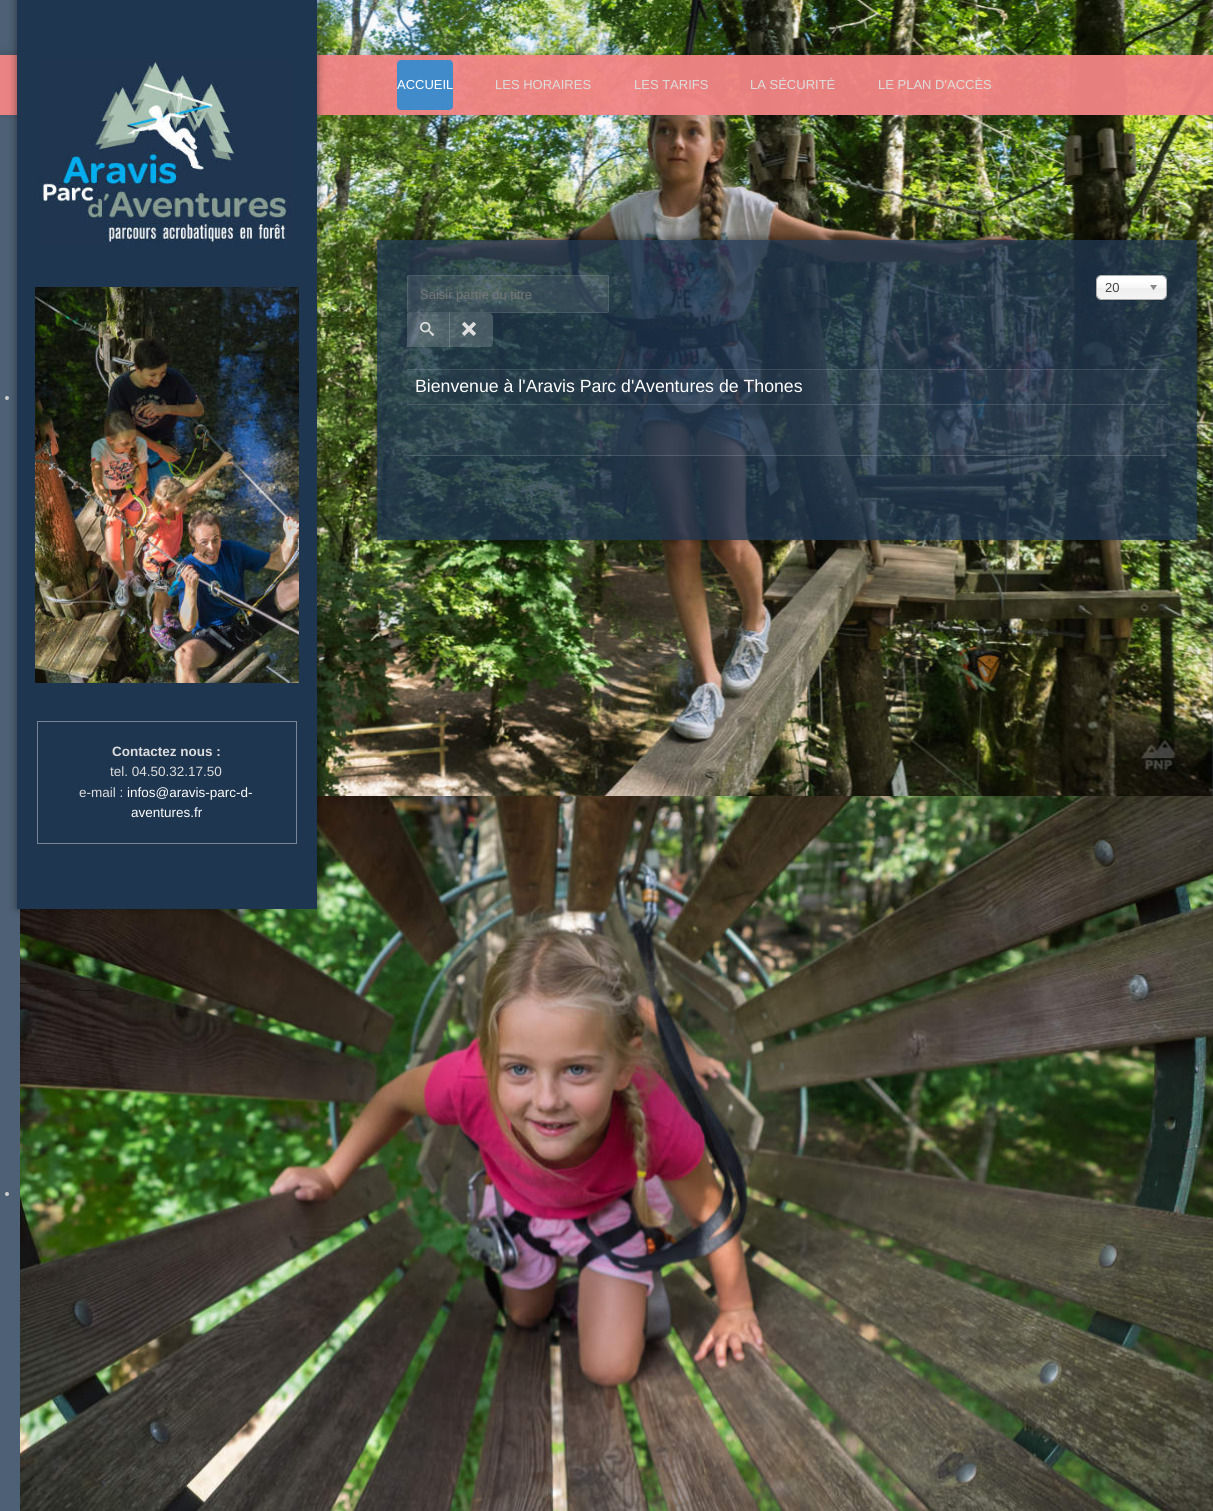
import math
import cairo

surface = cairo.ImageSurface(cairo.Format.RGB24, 1213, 1511)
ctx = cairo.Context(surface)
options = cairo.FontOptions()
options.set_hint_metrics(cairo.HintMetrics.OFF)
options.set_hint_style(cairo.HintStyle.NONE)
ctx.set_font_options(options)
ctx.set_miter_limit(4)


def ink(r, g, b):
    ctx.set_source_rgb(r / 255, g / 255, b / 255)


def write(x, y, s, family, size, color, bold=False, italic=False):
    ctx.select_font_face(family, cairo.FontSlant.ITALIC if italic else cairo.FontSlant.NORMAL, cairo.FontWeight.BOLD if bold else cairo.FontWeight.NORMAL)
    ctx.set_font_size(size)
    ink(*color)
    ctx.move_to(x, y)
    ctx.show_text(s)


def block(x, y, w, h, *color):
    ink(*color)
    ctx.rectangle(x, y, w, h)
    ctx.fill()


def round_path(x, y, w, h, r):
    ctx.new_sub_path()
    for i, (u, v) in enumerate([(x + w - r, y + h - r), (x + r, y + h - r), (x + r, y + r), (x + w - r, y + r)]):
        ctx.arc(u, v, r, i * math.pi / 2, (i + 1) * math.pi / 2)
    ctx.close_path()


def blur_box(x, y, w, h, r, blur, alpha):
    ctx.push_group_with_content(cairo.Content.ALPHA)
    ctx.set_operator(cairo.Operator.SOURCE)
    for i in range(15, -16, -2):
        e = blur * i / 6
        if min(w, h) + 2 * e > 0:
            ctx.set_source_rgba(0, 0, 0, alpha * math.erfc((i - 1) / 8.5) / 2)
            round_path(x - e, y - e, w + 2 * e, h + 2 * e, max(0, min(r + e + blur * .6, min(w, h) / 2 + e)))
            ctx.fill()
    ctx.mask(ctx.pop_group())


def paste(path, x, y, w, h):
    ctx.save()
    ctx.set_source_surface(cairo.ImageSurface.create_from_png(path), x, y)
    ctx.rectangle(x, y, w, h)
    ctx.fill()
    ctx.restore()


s1 = dict(family="Liberation Sans", size=13, color=(255, 255, 255))
s2 = dict(family="Liberation Sans", size=13, color=(221, 221, 221))
s3 = dict(family="Liberation Sans", size=13, color=(68, 68, 68))
s4 = dict(family="Liberation Sans", size=13, color=(117, 117, 117))
s5 = dict(family="Liberation Sans", size=17.7, color=(255, 255, 255))
s6 = dict(family="Liberation Sans", size=13.5, color=(221, 221, 221), bold=True)
s7 = dict(family="Liberation Sans", size=13.5, color=(221, 221, 221))
s8 = dict(family="Liberation Sans", size=13.5, color=(255, 255, 255))

ink(78, 96, 117)
ctx.paint()
ink(204, 204, 204)
ctx.arc(7, 398, 2, 0, 2 * math.pi)
ctx.fill()
paste("pic1.png", 317, 0, 896, 796)
ctx.arc(7, 1194, 2, 0, 2 * math.pi)
ctx.fill()
paste("pic2.png", 20, 796, 1193, 715)
ctx.save()
ctx.set_fill_rule(cairo.FillRule.EVEN_ODD)
ctx.new_path()
ctx.move_to(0, 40)
ctx.line_to(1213, 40)
ctx.line_to(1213, 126)
ctx.line_to(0, 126)
ctx.close_path()
ctx.move_to(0, 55)
ctx.line_to(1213, 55)
ctx.line_to(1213, 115)
ctx.line_to(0, 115)
ctx.close_path()
ctx.clip()
ink(0, 0, 0)
blur_box(0, 53, 1213, 60, 0, 4, 0.16)
ctx.restore()
ctx.set_source_rgba(0.949, 0.522, 0.522, 0.95)
ctx.rectangle(0, 55, 1213, 60)
ctx.fill()
ink(66, 139, 202)
round_path(397, 60, 56, 50, 4)
ctx.fill()
write(397, 89, "ACCUEIL", **s1)
write(495, 89, "LES HORAIRES", **s2)
write(634, 89, "LES TARIFS", **s2)
write(750, 89, "LA SÉCURITÉ", **s2)
write(878, 89, "LE PLAN D'ACCÈS", **s2)
ctx.save()
ctx.set_fill_rule(cairo.FillRule.EVEN_ODD)
ctx.new_path()
ctx.move_to(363, 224)
ctx.line_to(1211, 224)
ctx.line_to(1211, 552)
ctx.line_to(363, 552)
ctx.close_path()
ctx.move_to(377, 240)
ctx.line_to(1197, 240)
ctx.line_to(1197, 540)
ctx.line_to(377, 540)
ctx.close_path()
ctx.clip()
ink(0, 0, 0)
blur_box(376, 237, 822, 302, 0, 4, 0.4)
ctx.restore()
ctx.set_source_rgba(0.122, 0.212, 0.314, 0.79)
ctx.rectangle(377, 240, 820, 300)
ctx.fill()
ink(0, 0, 0)
blur_box(1096, 276, 71, 25, 5, 0.5, 0.1)
gradient = cairo.LinearGradient(1132, 276, 1132, 299)
gradient.add_color_stop_rgba(0.2, 1, 1, 1, 1)
gradient.add_color_stop_rgba(0.5, 0.965, 0.965, 0.965, 1)
gradient.add_color_stop_rgba(0.52, 0.933, 0.933, 0.933, 1)
gradient.add_color_stop_rgba(1, 0.957, 0.957, 0.957, 1)
ctx.set_source(gradient)
round_path(1097, 276, 69, 23, 4)
ctx.fill()
round_path(1096.5, 275.5, 70, 24, 4.5)
ink(170, 170, 170)
ctx.set_line_width(1)
ctx.stroke()
write(1105, 292, "20", **s3)
paste("pic3.png", 1150, 285, 7, 6)
ctx.set_source_rgba(1, 1, 1, 0.1)
round_path(407, 275, 202, 38, 2)
ctx.fill()
round_path(407.5, 275.5, 201, 37, 1.5)
ctx.set_source_rgba(1, 1, 1, 0.09)
ctx.stroke()
write(420, 299, "Saisir partie du titre", **s4)
ctx.set_source_rgba(1, 1, 1, 0.18)
ctx.rectangle(407, 313, 43, 34)
ctx.fill()
paste("pic4.png", 420, 321, 14, 15)
ctx.new_path()
ctx.move_to(449, 313)
ctx.line_to(489, 313)
ctx.curve_to(491, 313, 493, 315, 493, 317)
ctx.line_to(493, 343)
ctx.curve_to(493, 345, 491, 347, 489, 347)
ctx.line_to(449, 347)
ctx.close_path()
ctx.fill()
paste("pic5.png", 462, 321, 14, 15)
ctx.set_source_rgba(1, 1, 1, 0.14)
ctx.rectangle(407, 369, 760, 1)
ctx.fill()
ctx.set_source_rgba(1, 1, 1, 0.03)
ctx.rectangle(407, 370, 760, 86)
ctx.fill()
ctx.set_source_rgba(1, 1, 1, 0.14)
ctx.rectangle(407, 455, 760, 1)
ctx.fill()
ctx.rectangle(407, 404, 760, 1)
ctx.fill()
write(415, 392, "Bienvenue à l'Aravis Parc d'Aventures de Thones", **s5)
ink(0, 0, 0)
blur_box(16, -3, 302, 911, 0, 4, 0.4)
block(17, 0, 300, 909, 31, 54, 80)
paste("pic6.png", 39, 61, 253, 182)
paste("pic7.png", 35, 287, 264, 396)
ctx.rectangle(37.5, 721.5, 259, 122)
ink(121, 134, 150)
ctx.stroke()
write(112, 756, "Contactez nous :", **s6)
write(110, 776, "tel. 04.50.32.17.50", **s7)
write(79, 797, "e-mail :", **s7)
write(127, 797, "infos@aravis-parc-d-", **s8)
write(131, 817, "aventures.fr", **s8)
paste("pic8.png", 1202, 1374, 7, 126)
surface.write_to_png("screenshot.png")
